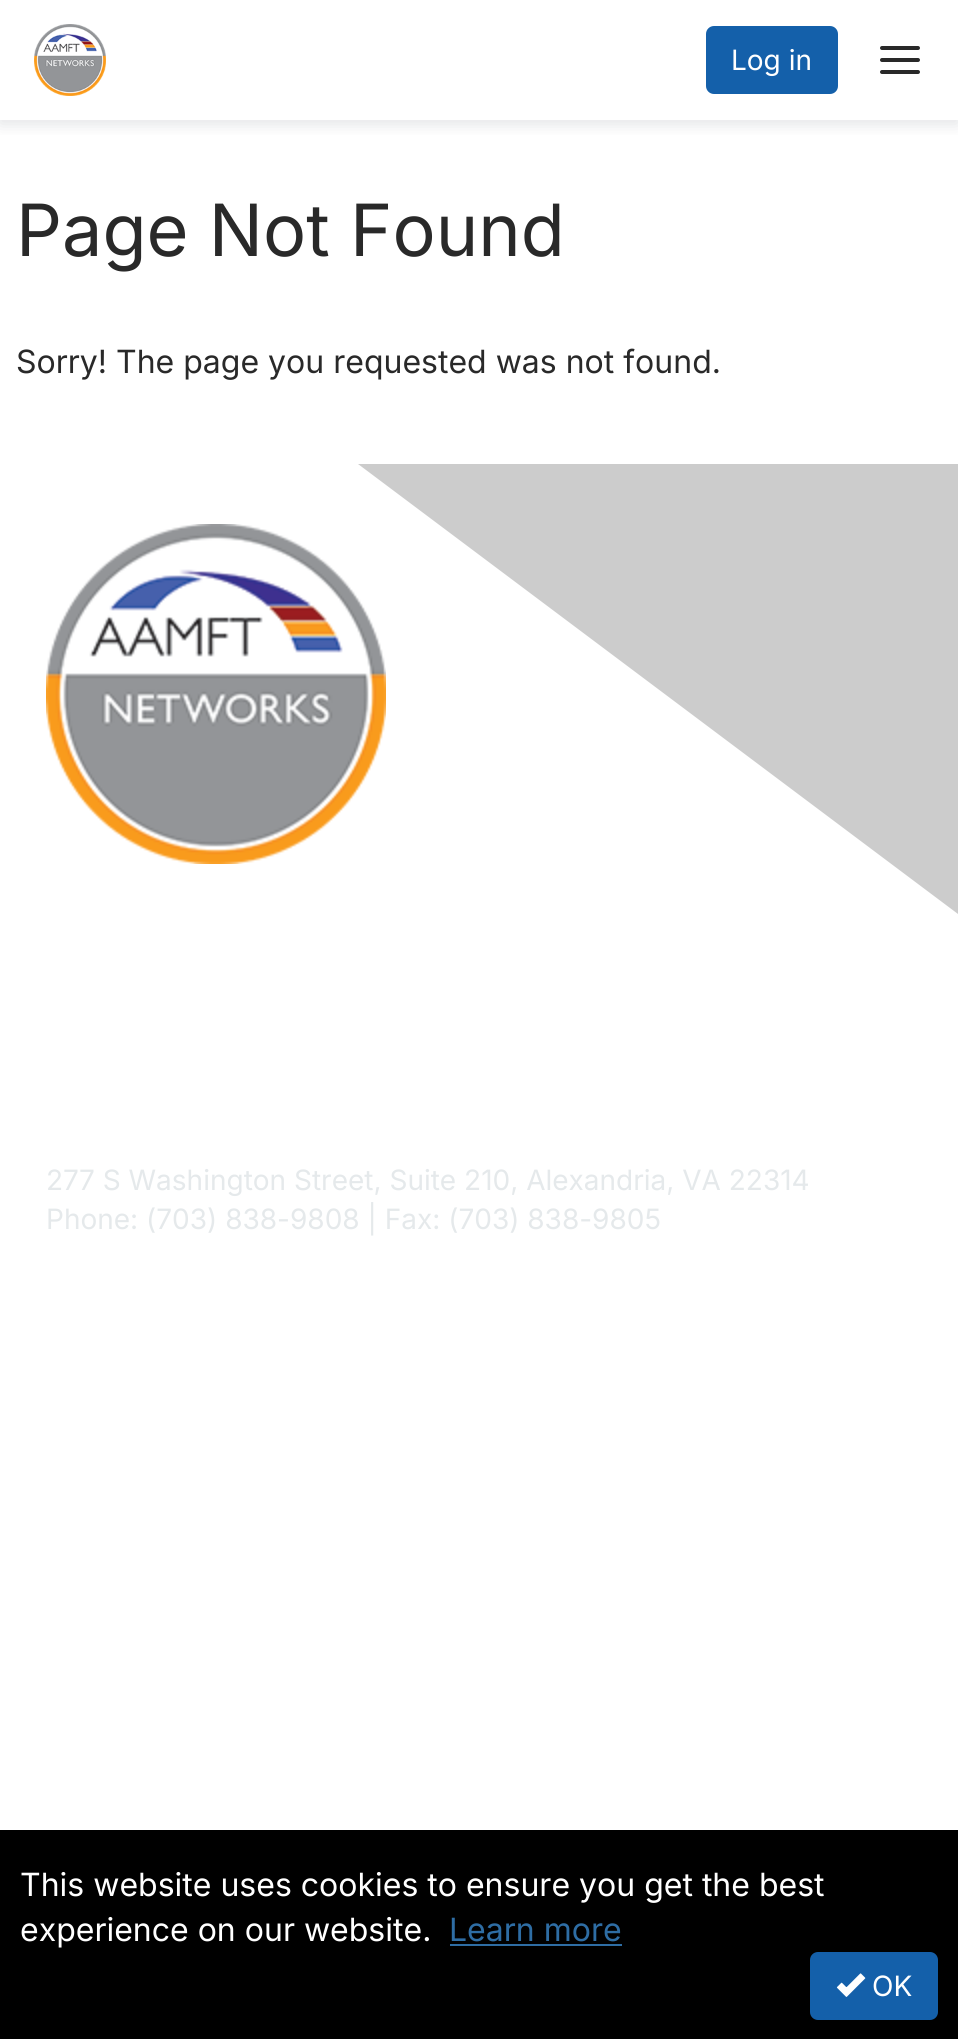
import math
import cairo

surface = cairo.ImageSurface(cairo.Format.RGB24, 958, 2039)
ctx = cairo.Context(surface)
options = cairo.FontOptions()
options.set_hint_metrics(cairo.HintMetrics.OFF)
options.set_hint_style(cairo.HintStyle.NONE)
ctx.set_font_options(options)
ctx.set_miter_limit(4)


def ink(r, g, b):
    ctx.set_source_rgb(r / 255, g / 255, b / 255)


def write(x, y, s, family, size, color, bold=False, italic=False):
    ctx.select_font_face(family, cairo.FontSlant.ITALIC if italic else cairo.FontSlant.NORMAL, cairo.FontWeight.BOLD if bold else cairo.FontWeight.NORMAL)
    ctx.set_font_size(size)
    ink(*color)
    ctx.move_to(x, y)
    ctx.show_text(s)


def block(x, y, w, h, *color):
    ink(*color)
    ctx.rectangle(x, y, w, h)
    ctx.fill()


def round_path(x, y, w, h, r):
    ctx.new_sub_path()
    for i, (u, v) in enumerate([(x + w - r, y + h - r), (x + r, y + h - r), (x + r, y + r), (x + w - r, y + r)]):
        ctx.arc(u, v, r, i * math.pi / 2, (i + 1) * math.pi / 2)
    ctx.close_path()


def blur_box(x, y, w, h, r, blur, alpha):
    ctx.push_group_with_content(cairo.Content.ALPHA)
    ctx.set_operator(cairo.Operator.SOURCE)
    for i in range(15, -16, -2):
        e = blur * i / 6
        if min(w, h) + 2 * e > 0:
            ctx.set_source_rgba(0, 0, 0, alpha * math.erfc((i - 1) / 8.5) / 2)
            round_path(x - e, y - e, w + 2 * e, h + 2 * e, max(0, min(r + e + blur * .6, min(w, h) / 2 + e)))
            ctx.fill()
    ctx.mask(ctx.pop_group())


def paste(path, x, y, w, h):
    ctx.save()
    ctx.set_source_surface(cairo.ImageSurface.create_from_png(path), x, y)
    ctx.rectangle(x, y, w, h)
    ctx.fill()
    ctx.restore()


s1 = dict(family="Inter", size=28, color=(255, 255, 255))
s2 = dict(family="Inter", size=72, color=(41, 41, 41))
s3 = dict(family="Inter", size=32, color=(41, 41, 41))
s4 = dict(family="Inter", size=28, color=(229, 233, 235))
s5 = dict(family="Inter", size=32, color=(255, 255, 255))
s6 = dict(family="Inter", size=32, color=(46, 109, 164))

ink(255, 255, 255)
ctx.paint()
ctx.save()
ctx.rectangle(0, 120, 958, 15)
ctx.clip()
ink(131, 135, 145)
blur_box(0, 4, 958, 120, 0, 8, 0.24)
ctx.restore()
paste("pic1.png", 34, 24, 72, 72)
ink(20, 96, 170)
round_path(707, 27, 130, 66, 7)
ctx.fill_preserve()
ctx.stroke()
write(731, 70, "Log in", **s1)
ink(41, 41, 41)
round_path(880, 46, 40, 4, 2)
ctx.fill()
round_path(880, 58, 40, 4, 2)
ctx.fill()
round_path(880, 70, 40, 4, 2)
ctx.fill()
write(16, 256, "Page Not Found", **s2)
write(16, 373, "Sorry! The page you requested was not found.", **s3)
ink(204, 204, 204)
ctx.new_path()
ctx.move_to(958, 464)
ctx.line_to(958, 914)
ctx.line_to(358, 464)
ctx.close_path()
ctx.fill()
paste("pic2.png", 46, 524, 340, 340)
write(46, 1190, "277 S Washington Street, Suite 210, Alexandria, VA 22314", **s4)
write(46, 1229, "Phone: (703) 838-9808 | Fax: (703) 838-9805", **s4)
block(0, 1830, 958, 209, 0, 0, 0)
write(20, 1896, "This website uses cookies to ensure you get the best", **s5)
write(20, 1941, "experience on our website.", **s5)
write(449, 1941, "Learn more", **s6)
block(450, 1944, 172, 2, 46, 109, 164)
ink(20, 96, 170)
round_path(811, 1953, 126, 66, 7)
ctx.fill_preserve()
ctx.stroke()
paste("pic3.png", 836, 1973, 30, 24)
write(872, 1996, "OK", **s1)
surface.write_to_png("screenshot.png")
